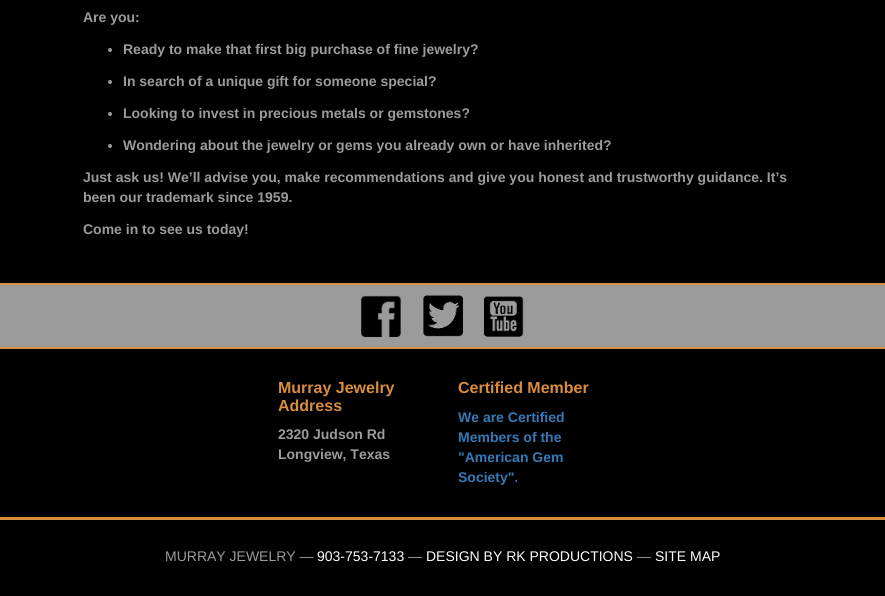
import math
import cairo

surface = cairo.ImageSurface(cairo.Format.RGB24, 885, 596)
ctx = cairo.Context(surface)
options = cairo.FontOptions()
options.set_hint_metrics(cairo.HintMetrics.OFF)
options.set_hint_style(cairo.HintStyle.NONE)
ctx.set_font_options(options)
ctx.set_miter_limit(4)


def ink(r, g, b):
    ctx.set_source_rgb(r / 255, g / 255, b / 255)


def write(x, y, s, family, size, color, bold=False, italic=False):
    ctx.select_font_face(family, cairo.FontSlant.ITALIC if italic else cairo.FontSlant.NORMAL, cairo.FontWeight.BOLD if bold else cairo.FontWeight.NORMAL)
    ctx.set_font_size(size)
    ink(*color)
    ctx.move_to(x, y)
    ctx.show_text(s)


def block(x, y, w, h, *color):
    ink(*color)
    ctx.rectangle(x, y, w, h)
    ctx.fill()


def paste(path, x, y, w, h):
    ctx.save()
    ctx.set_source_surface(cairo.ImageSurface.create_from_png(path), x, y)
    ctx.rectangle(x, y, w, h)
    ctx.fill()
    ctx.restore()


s1 = dict(family="Liberation Sans", size=14, color=(155, 155, 155), bold=True)
s2 = dict(family="Liberation Sans", size=16, color=(218, 141, 63), bold=True)
s3 = dict(family="Liberation Sans", size=14, color=(51, 122, 183), bold=True)
s4 = dict(family="Liberation Sans", size=14, color=(155, 155, 155))
s5 = dict(family="Liberation Sans", size=14, color=(255, 255, 255))

ink(0, 0, 0)
ctx.paint()
write(83, 22, "Are you:", **s1)
ctx.new_path()
ctx.arc(110, 50, 2, 0, 2 * math.pi)
ctx.fill()
write(123, 54, "Ready to make that first big purchase of fine jewelry?", **s1)
ctx.new_path()
ctx.arc(110, 82, 2, 0, 2 * math.pi)
ctx.fill()
write(123, 86, "In search of a unique gift for someone special?", **s1)
ctx.new_path()
ctx.arc(110, 114, 2, 0, 2 * math.pi)
ctx.fill()
write(123, 118, "Looking to invest in precious metals or gemstones?", **s1)
ctx.new_path()
ctx.arc(110, 146, 2, 0, 2 * math.pi)
ctx.fill()
write(123, 150, "Wondering about the jewelry or gems you already own or have inherited?", **s1)
write(83, 182, "Just ask us! We’ll advise you, make recommendations and give you honest and trustworthy guidance. It’s", **s1)
write(83, 202, "been our trademark since 1959.", **s1)
write(83, 234, "Come in to see us today!", **s1)
block(0, 285, 885, 62, 155, 155, 155)
block(0, 283, 885, 2, 218, 141, 63)
block(0, 347, 885, 2, 218, 141, 63)
paste("pic1.png", 361, 295, 40, 42)
paste("pic2.png", 423, 295, 40, 42)
paste("pic3.png", 484, 296, 40, 41)
write(278, 393, "Murray Jewelry", **s2)
write(278, 411, "Address", **s2)
write(278, 439, "2320 Judson Rd", **s1)
write(278, 459, "Longview, Texas", **s1)
write(458, 393, "Certified Member", **s2)
write(458, 422, "We are Certified", **s3)
write(458, 442, "Members of the", **s3)
write(458, 462, "\"American Gem", **s3)
write(458, 482, "Society\".", **s3)
block(0, 517, 885, 3, 218, 141, 63)
write(165, 561, "MURRAY JEWELRY —", **s4)
write(317, 561, "903-753-7133", **s5)
write(408, 561, "—", **s4)
write(426, 561, "DESIGN BY RK PRODUCTIONS", **s5)
write(637, 561, "—", **s4)
write(655, 561, "SITE MAP", **s5)
surface.write_to_png("screenshot.png")
